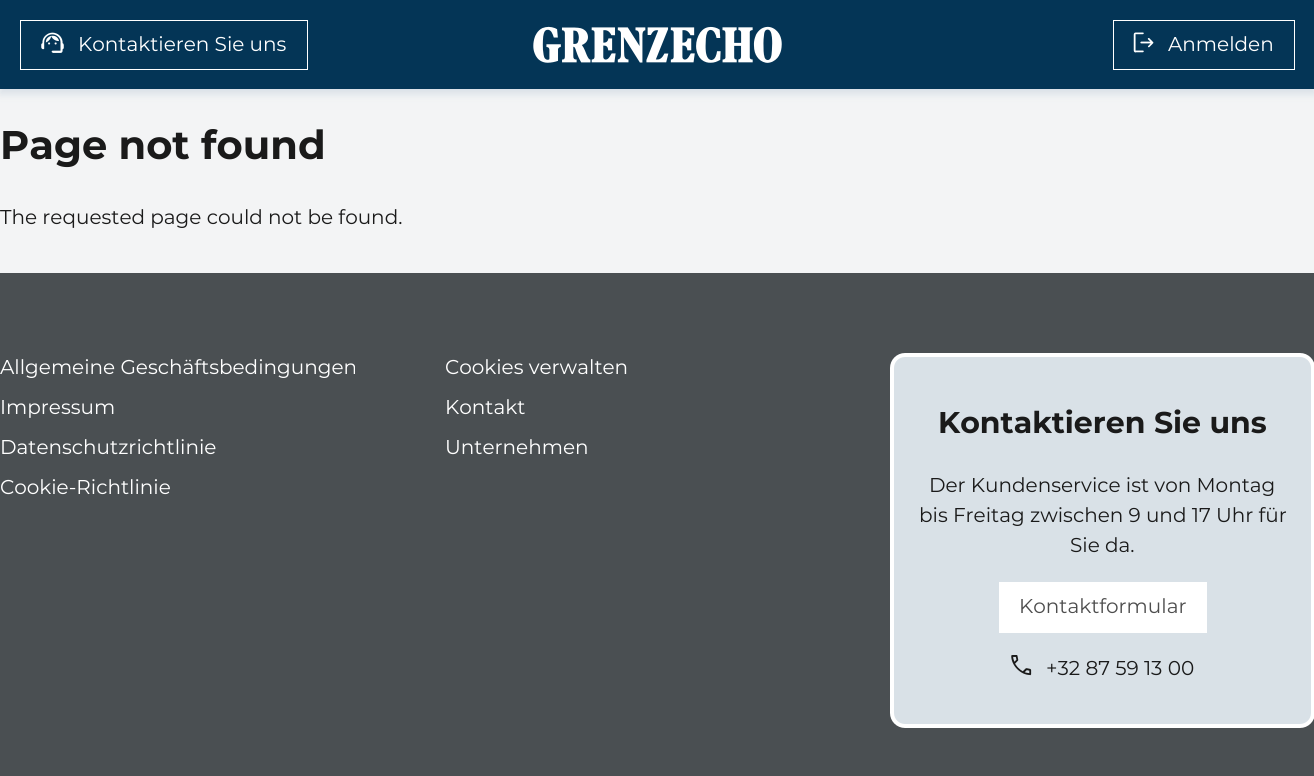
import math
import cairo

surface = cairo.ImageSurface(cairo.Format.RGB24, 1314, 776)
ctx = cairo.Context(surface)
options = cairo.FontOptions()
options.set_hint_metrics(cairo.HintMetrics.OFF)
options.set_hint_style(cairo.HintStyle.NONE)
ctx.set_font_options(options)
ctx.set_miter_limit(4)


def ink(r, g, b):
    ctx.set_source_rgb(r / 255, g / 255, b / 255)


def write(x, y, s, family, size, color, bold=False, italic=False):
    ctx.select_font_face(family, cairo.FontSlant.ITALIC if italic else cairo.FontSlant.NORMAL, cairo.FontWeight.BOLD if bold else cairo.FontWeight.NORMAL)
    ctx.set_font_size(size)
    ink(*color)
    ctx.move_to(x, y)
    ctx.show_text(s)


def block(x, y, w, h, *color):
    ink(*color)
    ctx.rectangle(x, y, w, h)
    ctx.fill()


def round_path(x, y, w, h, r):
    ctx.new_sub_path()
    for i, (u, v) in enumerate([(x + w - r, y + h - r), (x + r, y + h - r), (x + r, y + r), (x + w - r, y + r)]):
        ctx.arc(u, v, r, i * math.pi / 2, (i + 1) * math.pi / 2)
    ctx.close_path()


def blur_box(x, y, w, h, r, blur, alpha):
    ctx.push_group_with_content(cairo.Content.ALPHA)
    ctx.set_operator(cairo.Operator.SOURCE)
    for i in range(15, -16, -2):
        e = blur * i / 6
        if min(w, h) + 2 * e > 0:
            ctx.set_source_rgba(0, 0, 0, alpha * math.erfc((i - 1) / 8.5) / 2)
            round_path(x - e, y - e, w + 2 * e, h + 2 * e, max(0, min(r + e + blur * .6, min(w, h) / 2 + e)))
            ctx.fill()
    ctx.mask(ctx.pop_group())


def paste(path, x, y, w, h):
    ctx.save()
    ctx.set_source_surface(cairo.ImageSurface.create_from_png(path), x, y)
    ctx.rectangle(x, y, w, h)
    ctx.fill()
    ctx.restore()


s1 = dict(family="Montserrat", size=20, color=(255, 255, 255))
s2 = dict(family="Montserrat", size=40, color=(26, 26, 26), bold=True)
s3 = dict(family="Montserrat", size=20, color=(26, 26, 26))
s4 = dict(family="Montserrat", size=30, color=(26, 26, 26), bold=True)
s5 = dict(family="Montserrat", size=20, color=(77, 77, 77))

ink(243, 244, 245)
ctx.paint()
ink(217, 224, 231)
blur_box(0, 5, 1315, 89, 0, 4, 1)
block(0, 0, 1314, 89, 4, 53, 86)
ctx.rectangle(20.5, 20.5, 287, 49)
ink(255, 255, 255)
ctx.set_line_width(1)
ctx.stroke()
paste("pic1.png", 41, 32, 23, 21)
write(78, 51, "Kontaktieren Sie uns", **s1)
paste("pic2.png", 533, 26, 249, 37)
ctx.rectangle(1113.5, 20.5, 181, 49)
ctx.stroke()
paste("pic3.png", 1133, 32, 21, 21)
write(1168, 51, "Anmelden", **s1)
write(0, 159, "Page not found", **s2)
write(0, 224, "The requested page could not be found.", **s3)
block(0, 273, 1314, 503, 74, 79, 82)
write(0, 374, "Allgemeine Geschäftsbedingungen", **s1)
write(0, 414, "Impressum", **s1)
write(0, 454, "Datenschutzrichtlinie", **s1)
write(0, 494, "Cookie-Richtlinie", **s1)
write(445, 374, "Cookies verwalten", **s1)
write(445, 414, "Kontakt", **s1)
write(445, 454, "Unternehmen", **s1)
ink(217, 225, 231)
round_path(892, 355, 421, 371, 13)
ctx.fill_preserve()
ink(255, 255, 255)
ctx.set_line_width(4)
ctx.stroke()
write(938, 433, "Kontaktieren Sie uns", **s4)
write(929, 492, "Der Kundenservice ist von Montag", **s3)
write(919, 522, "bis Freitag zwischen 9 und 17 Uhr für", **s3)
write(1070, 552, "Sie da.", **s3)
block(999, 582, 208, 51, 255, 255, 255)
write(1019, 613, "Kontaktformular", **s5)
paste("pic4.png", 1011, 655, 21, 21)
write(1046, 675, "+32 87 59 13 00", **s3)
surface.write_to_png("screenshot.png")
